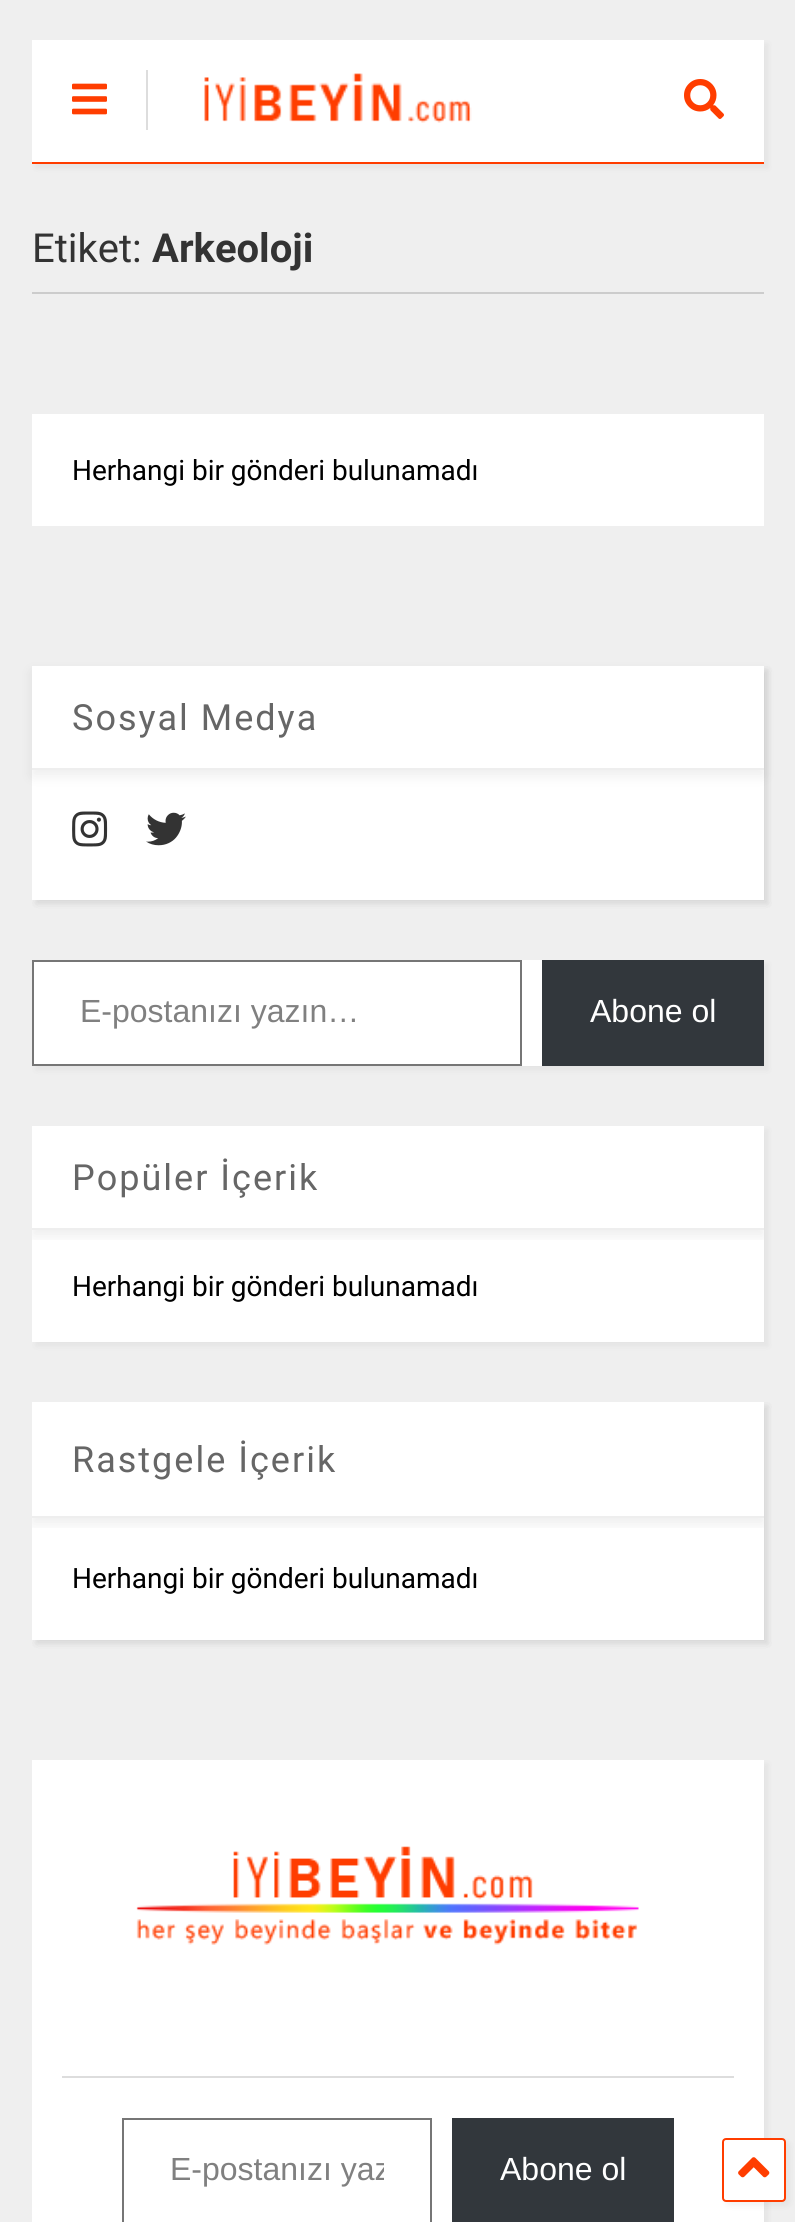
import math
import cairo

surface = cairo.ImageSurface(cairo.Format.RGB24, 795, 2222)
ctx = cairo.Context(surface)
options = cairo.FontOptions()
options.set_hint_metrics(cairo.HintMetrics.OFF)
options.set_hint_style(cairo.HintStyle.NONE)
ctx.set_font_options(options)
ctx.set_miter_limit(4)


def ink(r, g, b):
    ctx.set_source_rgb(r / 255, g / 255, b / 255)


def write(x, y, s, family, size, color, bold=False, italic=False):
    ctx.select_font_face(family, cairo.FontSlant.ITALIC if italic else cairo.FontSlant.NORMAL, cairo.FontWeight.BOLD if bold else cairo.FontWeight.NORMAL)
    ctx.set_font_size(size)
    ink(*color)
    ctx.move_to(x, y)
    ctx.show_text(s)


def write_spaced(x, y, s, letter, word):
    ctx.move_to(x, y)
    for ch in s:
        ctx.show_text(ch)
        ctx.rel_move_to(letter + word * (ch == ' '), 0)


def block(x, y, w, h, *color):
    ink(*color)
    ctx.rectangle(x, y, w, h)
    ctx.fill()


def round_path(x, y, w, h, r):
    ctx.new_sub_path()
    for i, (u, v) in enumerate([(x + w - r, y + h - r), (x + r, y + h - r), (x + r, y + r), (x + w - r, y + r)]):
        ctx.arc(u, v, r, i * math.pi / 2, (i + 1) * math.pi / 2)
    ctx.close_path()


def blur_box(x, y, w, h, r, blur, alpha):
    ctx.push_group_with_content(cairo.Content.ALPHA)
    ctx.set_operator(cairo.Operator.SOURCE)
    for i in range(15, -16, -2):
        e = blur * i / 6
        if min(w, h) + 2 * e > 0:
            ctx.set_source_rgba(0, 0, 0, alpha * math.erfc((i - 1) / 8.5) / 2)
            round_path(x - e, y - e, w + 2 * e, h + 2 * e, max(0, min(r + e + blur * .6, min(w, h) / 2 + e)))
            ctx.fill()
    ctx.mask(ctx.pop_group())


def paste(path, x, y, w, h):
    ctx.save()
    ctx.set_source_surface(cairo.ImageSurface.create_from_png(path), x, y)
    ctx.rectangle(x, y, w, h)
    ctx.fill()
    ctx.restore()


s1 = dict(family="Roboto", size=40, color=(51, 51, 51))
s2 = dict(family="Roboto", size=40, color=(51, 51, 51), bold=True)
s3 = dict(family="Roboto", size=28, color=(0, 0, 0))
s4 = dict(family="Liberation Sans", size=32, color=(128, 128, 128))
s5 = dict(family="Liberation Sans", size=32, color=(255, 255, 255))

ink(239, 239, 239)
ctx.paint()
ink(0, 0, 0)
blur_box(36, 44, 732, 124, 0, 3, 0.05)
block(32, 40, 732, 122, 255, 255, 255)
paste("pic1.png", 72, 83, 35, 32)
block(146, 70, 2, 60, 221, 221, 221)
paste("pic2.png", 204, 73, 268, 50)
paste("pic3.png", 684, 79, 40, 40)
block(32, 162, 732, 2, 255, 61, 0)
block(32, 292, 732, 2, 204, 204, 204)
write(32, 262, "Etiket:", **s1)
write(152, 262, "Arkeoloji", **s2)
block(32, 414, 732, 112, 255, 255, 255)
write(72, 480, "Herhangi bir gönderi bulunamadı", **s3)
ink(0, 0, 0)
blur_box(36, 670, 732, 234, 0, 3, 0.05)
block(32, 666, 732, 234, 255, 255, 255)
ctx.save()
ctx.set_fill_rule(cairo.FillRule.EVEN_ODD)
ctx.new_path()
ctx.move_to(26, 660)
ctx.line_to(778, 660)
ctx.line_to(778, 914)
ctx.line_to(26, 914)
ctx.close_path()
ctx.move_to(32, 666)
ctx.line_to(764, 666)
ctx.line_to(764, 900)
ctx.line_to(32, 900)
ctx.close_path()
ctx.clip()
ink(0, 0, 0)
blur_box(36, 670, 732, 234, 0, 3, 0.05)
ctx.restore()
ctx.save()
ctx.set_fill_rule(cairo.FillRule.EVEN_ODD)
ctx.new_path()
ctx.move_to(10, 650)
ctx.line_to(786, 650)
ctx.line_to(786, 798)
ctx.line_to(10, 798)
ctx.close_path()
ctx.move_to(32, 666)
ctx.line_to(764, 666)
ctx.line_to(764, 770)
ctx.line_to(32, 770)
ctx.close_path()
ctx.clip()
ink(0, 0, 0)
blur_box(32, 672, 732, 104, 0, 7, 0.07)
ctx.restore()
block(32, 768, 732, 2, 238, 238, 238)
ctx.set_font_size(36)
ink(102, 102, 102)
write_spaced(72, 730, "Sosyal Medya", 2, 0)
paste("pic4.png", 72, 811, 36, 36)
paste("pic5.png", 146, 812, 40, 34)
ink(0, 0, 0)
blur_box(36, 964, 732, 106, 0, 3, 0.05)
block(34, 960, 508, 106, 255, 255, 255)
ctx.rectangle(33, 961, 488, 104)
ink(118, 118, 118)
ctx.stroke()
write(80, 1022, "E-postanızı yazın…", **s4)
block(542, 960, 222, 106, 50, 55, 60)
write(590, 1022, "Abone ol", **s5)
ink(0, 0, 0)
blur_box(36, 1130, 732, 216, 0, 3, 0.05)
block(32, 1126, 732, 216, 255, 255, 255)
ctx.save()
ctx.rectangle(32, 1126, 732, 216)
ctx.clip()
ctx.rectangle(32, 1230, 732, 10)
ctx.clip()
ink(0, 0, 0)
blur_box(32, 1132, 732, 104, 0, 7, 0.07)
ctx.restore()
block(32, 1228, 732, 2, 238, 238, 238)
ctx.select_font_face("Roboto")
ctx.set_font_size(36)
ink(102, 102, 102)
write_spaced(72, 1190, "Popüler İçerik", 2, 0)
write(72, 1296, "Herhangi bir gönderi bulunamadı", **s3)
ink(0, 0, 0)
blur_box(36, 1406, 732, 238, 0, 3, 0.05)
block(32, 1402, 732, 238, 255, 255, 255)
ctx.save()
ctx.set_fill_rule(cairo.FillRule.EVEN_ODD)
ctx.new_path()
ctx.move_to(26, 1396)
ctx.line_to(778, 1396)
ctx.line_to(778, 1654)
ctx.line_to(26, 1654)
ctx.close_path()
ctx.move_to(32, 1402)
ctx.line_to(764, 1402)
ctx.line_to(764, 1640)
ctx.line_to(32, 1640)
ctx.close_path()
ctx.clip()
ink(0, 0, 0)
blur_box(36, 1406, 732, 238, 0, 3, 0.05)
ctx.restore()
ctx.save()
ctx.rectangle(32, 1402, 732, 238)
ctx.clip()
ctx.rectangle(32, 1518, 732, 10)
ctx.clip()
ink(0, 0, 0)
blur_box(32, 1408, 732, 116, 0, 7, 0.07)
ctx.restore()
block(32, 1516, 732, 2, 238, 238, 238)
ctx.set_font_size(36)
ink(102, 102, 102)
write_spaced(72, 1472, "Rastgele İçerik", 2, 0)
write(72, 1588, "Herhangi bir gönderi bulunamadı", **s3)
ink(0, 0, 0)
blur_box(36, 1764, 732, 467, 0, 3, 0.05)
block(32, 1760, 732, 462, 255, 255, 255)
paste("pic6.png", 136, 1846, 503, 99)
block(62, 2076, 672, 2, 221, 221, 221)
ctx.rectangle(123, 2119, 308, 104)
ink(118, 118, 118)
ctx.stroke()
ctx.save()
ctx.rectangle(170, 2152, 214, 36)
ctx.clip()
write(170, 2180, "E-postanızı yaz", **s4)
ctx.restore()
block(452, 2118, 222, 104, 50, 55, 60)
write(500, 2180, "Abone ol", **s5)
ink(0, 0, 0)
blur_box(726, 2142, 64, 64, 4, 3, 0.05)
ink(255, 255, 255)
round_path(723, 2139, 62, 62, 3)
ctx.fill_preserve()
ink(255, 61, 0)
ctx.stroke()
paste("pic7.png", 738, 2157, 32, 21)
surface.write_to_png("screenshot.png")
